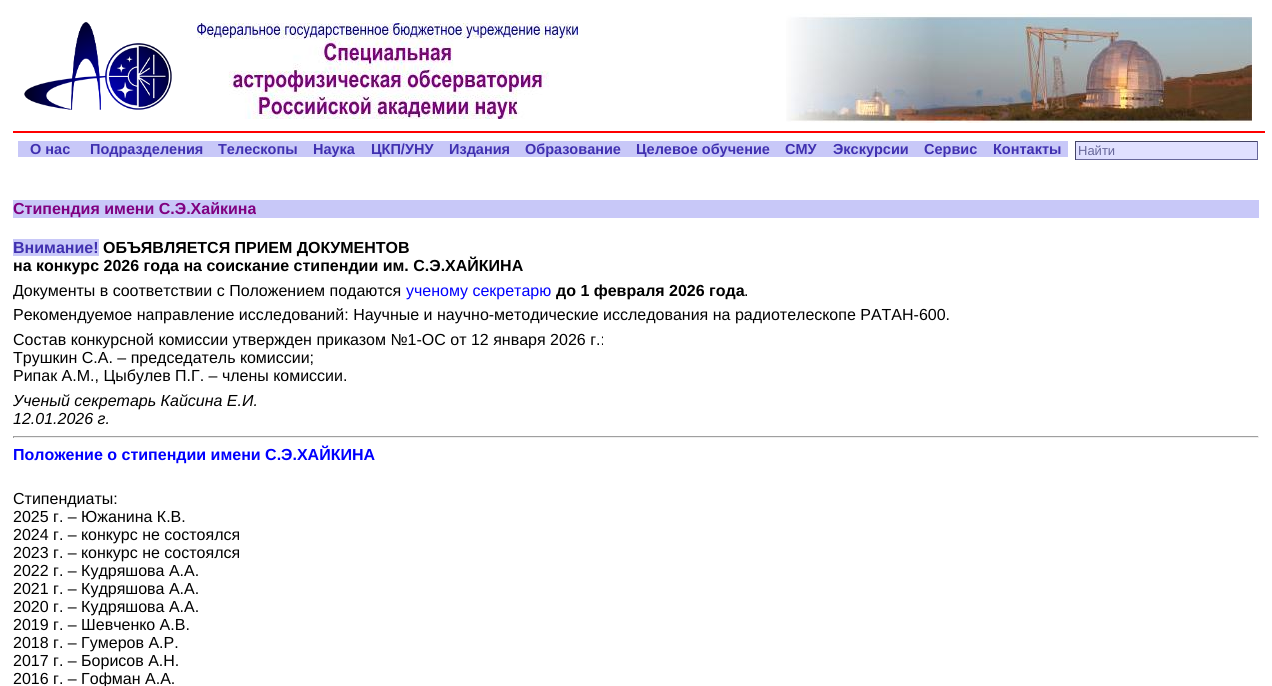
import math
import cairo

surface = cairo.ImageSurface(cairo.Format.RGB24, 1272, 686)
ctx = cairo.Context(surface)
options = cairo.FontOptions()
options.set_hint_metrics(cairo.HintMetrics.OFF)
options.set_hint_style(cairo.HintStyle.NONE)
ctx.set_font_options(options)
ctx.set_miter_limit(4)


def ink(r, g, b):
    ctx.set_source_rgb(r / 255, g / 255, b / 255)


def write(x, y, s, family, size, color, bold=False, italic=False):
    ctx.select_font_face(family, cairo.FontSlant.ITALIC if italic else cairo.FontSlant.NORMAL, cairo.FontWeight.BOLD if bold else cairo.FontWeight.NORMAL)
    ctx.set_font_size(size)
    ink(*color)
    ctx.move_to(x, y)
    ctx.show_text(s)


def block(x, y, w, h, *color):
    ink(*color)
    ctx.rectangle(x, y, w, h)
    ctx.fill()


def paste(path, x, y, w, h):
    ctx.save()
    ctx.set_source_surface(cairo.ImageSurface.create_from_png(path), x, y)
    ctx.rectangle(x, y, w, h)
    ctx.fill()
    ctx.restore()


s1 = dict(family="Liberation Sans", size=14.5, color=(64, 48, 176), bold=True)
s2 = dict(family="Liberation Sans", size=13, color=(102, 102, 153))
s3 = dict(family="Liberation Sans", size=16, color=(128, 0, 128), bold=True)
s4 = dict(family="Liberation Sans", size=16, color=(64, 48, 176), bold=True)
s5 = dict(family="Liberation Sans", size=16, color=(0, 0, 0), bold=True)
s6 = dict(family="Liberation Sans", size=16, color=(0, 0, 0))
s7 = dict(family="Liberation Sans", size=16, color=(0, 0, 255))
s8 = dict(family="Liberation Sans", size=16, color=(0, 0, 0), italic=True)
s9 = dict(family="Liberation Sans", size=16, color=(0, 0, 255), bold=True)

ink(255, 255, 255)
ctx.paint()
paste("pic1.png", 24, 22, 148, 88)
paste("pic2.png", 197, 23, 381, 96)
paste("pic3.png", 786, 13, 466, 110)
block(13, 131, 1252, 2, 255, 0, 0)
block(18, 141, 1050, 16, 200, 200, 248)
write(30, 154, "О нас", **s1)
write(90, 154, "Подразделения", **s1)
write(218, 154, "Телескопы", **s1)
write(313, 154, "Наука", **s1)
write(371, 154, "ЦКП/УНУ", **s1)
write(449, 154, "Издания", **s1)
write(525, 154, "Образование", **s1)
write(636, 154, "Целевое обучение", **s1)
write(785, 154, "СМУ", **s1)
write(833, 154, "Экскурсии", **s1)
write(924, 154, "Сервис", **s1)
write(993, 154, "Контакты", **s1)
block(1076, 142, 181, 17, 224, 224, 255)
block(1075, 141, 183, 1, 68, 68, 102)
block(1257, 141, 1, 19, 102, 102, 153)
block(1075, 159, 183, 1, 102, 102, 153)
block(1075, 141, 1, 19, 68, 68, 102)
write(1078, 155, "Найти", **s2)
block(13, 200, 1246, 18, 200, 200, 248)
write(13, 214, "Стипендия имени С.Э.Хайкина", **s3)
block(13, 239, 86, 17, 200, 200, 248)
write(13, 253, "Внимание!", **s4)
write(103, 253, "ОБЪЯВЛЯЕТСЯ ПРИЕМ ДОКУМЕНТОВ", **s5)
write(13, 271, "на конкурс 2026 года на соискание стипендии им. С.Э.ХАЙКИНА", **s5)
write(13, 296, "Документы в соответствии с Положением подаются", **s6)
write(406, 296, "ученому секретарю", **s7)
write(556, 296, "до 1 февраля 2026 года", **s5)
write(744, 296, ".", **s6)
write(13, 320, "Рекомендуемое направление исследований: Научные и научно-методические исследования на радиотелескопе РАТАН-600.", **s6)
write(13, 345, "Состав конкурсной комиссии утвержден приказом №1-ОC от 12 января 2026 г.:", **s6)
write(13, 363, "Трушкин С.А. – председатель комиссии;", **s6)
write(13, 381, "Рипак А.М., Цыбулев П.Г. – члены комиссии.", **s6)
write(13, 406, "Ученый секретарь Кайсина Е.И.", **s8)
write(13, 424, "12.01.2026 г.", **s8)
block(13, 436, 1246, 1, 159, 159, 159)
block(1258, 436, 1, 2, 238, 238, 238)
block(13, 437, 1246, 1, 238, 238, 238)
block(13, 436, 1, 2, 159, 159, 159)
write(13, 460, "Положение о стипендии имени C.Э.ХАЙКИНА", **s9)
write(13, 504, "Стипендиаты:", **s6)
write(13, 522, "2025 г. – Южанина К.В.", **s6)
write(13, 540, "2024 г. – конкурс не состоялся", **s6)
write(13, 558, "2023 г. – конкурс не состоялся", **s6)
write(13, 576, "2022 г. – Кудряшова А.А.", **s6)
write(13, 594, "2021 г. – Кудряшова А.А.", **s6)
write(13, 612, "2020 г. – Кудряшова А.А.", **s6)
write(13, 630, "2019 г. – Шевченко А.В.", **s6)
write(13, 648, "2018 г. – Гумеров А.Р.", **s6)
write(13, 666, "2017 г. – Борисов А.Н.", **s6)
write(13, 684, "2016 г. – Гофман А.А.", **s6)
surface.write_to_png("screenshot.png")
